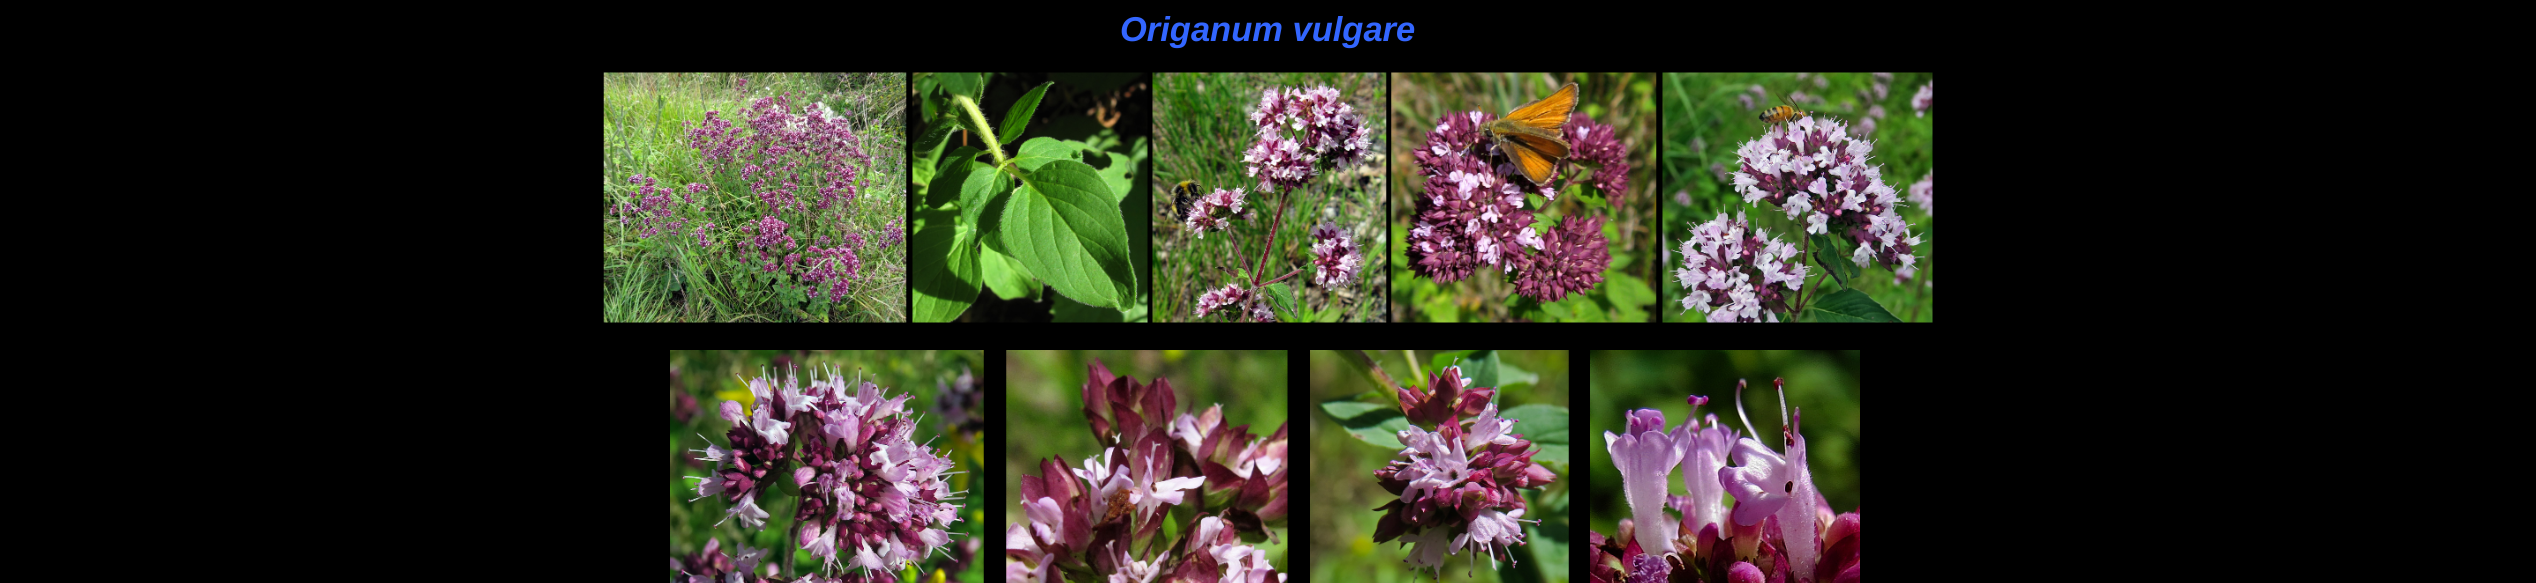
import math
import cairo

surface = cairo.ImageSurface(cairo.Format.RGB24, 2536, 583)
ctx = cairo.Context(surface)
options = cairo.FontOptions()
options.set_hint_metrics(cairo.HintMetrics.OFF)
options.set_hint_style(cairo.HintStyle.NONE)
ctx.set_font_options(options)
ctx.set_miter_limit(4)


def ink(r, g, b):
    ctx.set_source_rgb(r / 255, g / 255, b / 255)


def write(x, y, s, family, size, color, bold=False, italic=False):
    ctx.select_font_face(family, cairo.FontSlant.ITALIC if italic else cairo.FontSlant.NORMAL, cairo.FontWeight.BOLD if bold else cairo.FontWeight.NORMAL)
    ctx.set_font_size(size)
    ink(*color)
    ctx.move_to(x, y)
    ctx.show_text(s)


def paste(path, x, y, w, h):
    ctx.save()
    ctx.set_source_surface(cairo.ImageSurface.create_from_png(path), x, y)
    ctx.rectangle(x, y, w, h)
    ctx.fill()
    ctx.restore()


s1 = dict(family="Liberation Sans", size=34.5, color=(51, 102, 255), bold=True, italic=True)

ink(0, 0, 0)
ctx.paint()
write(1120, 41, "Origanum vulgare", **s1)
paste("pic1.png", 603, 72, 304, 251)
paste("pic2.png", 912, 72, 236, 251)
paste("pic3.png", 1152, 72, 235, 251)
paste("pic4.png", 1391, 72, 266, 251)
paste("pic5.png", 1662, 72, 271, 251)
paste("pic6.png", 670, 350, 314, 233)
paste("pic7.png", 1006, 350, 282, 233)
paste("pic8.png", 1310, 350, 259, 233)
paste("pic9.png", 1590, 350, 270, 233)
surface.write_to_png("screenshot.png")
